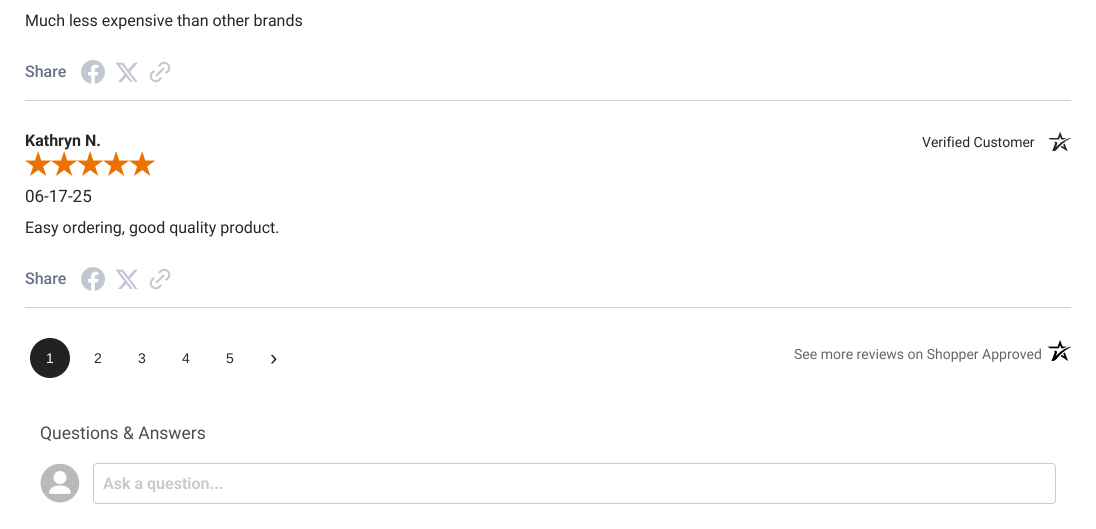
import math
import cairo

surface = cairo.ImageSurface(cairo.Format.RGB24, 1096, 529)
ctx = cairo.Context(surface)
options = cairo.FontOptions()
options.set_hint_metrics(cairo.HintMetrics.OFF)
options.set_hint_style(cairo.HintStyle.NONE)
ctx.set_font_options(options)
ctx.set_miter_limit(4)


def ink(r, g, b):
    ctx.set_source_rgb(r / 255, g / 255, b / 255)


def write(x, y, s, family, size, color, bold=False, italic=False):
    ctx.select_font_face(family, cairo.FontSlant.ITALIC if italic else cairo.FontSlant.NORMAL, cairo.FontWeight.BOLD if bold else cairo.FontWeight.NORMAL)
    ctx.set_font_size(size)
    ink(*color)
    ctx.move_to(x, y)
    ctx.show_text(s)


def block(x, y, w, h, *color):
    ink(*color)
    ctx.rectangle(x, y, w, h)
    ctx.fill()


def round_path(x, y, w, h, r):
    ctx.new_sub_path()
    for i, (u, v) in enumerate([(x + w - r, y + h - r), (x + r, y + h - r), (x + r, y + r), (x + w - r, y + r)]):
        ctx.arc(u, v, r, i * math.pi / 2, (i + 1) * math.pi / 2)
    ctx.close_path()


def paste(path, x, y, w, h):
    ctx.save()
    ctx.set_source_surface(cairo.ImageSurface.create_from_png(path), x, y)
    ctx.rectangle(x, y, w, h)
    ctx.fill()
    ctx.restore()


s1 = dict(family="Roboto", size=16, color=(39, 39, 39))
s2 = dict(family="Roboto Medium", size=16, color=(102, 112, 133))
s3 = dict(family="Roboto", size=16, color=(39, 39, 39), bold=True)
s4 = dict(family="Roboto", size=14, color=(39, 39, 39))
s5 = dict(family="Roboto", size=17, color=(39, 39, 39))
s6 = dict(family="Liberation Sans", size=14, color=(255, 255, 255))
s7 = dict(family="Liberation Sans", size=14, color=(39, 39, 39))
s8 = dict(family="Liberation Sans", size=22, color=(39, 39, 39))
s9 = dict(family="Roboto", size=14, color=(102, 102, 102))
s10 = dict(family="Roboto", size=17.5, color=(77, 77, 77))
s11 = dict(family="Roboto", size=16, color=(202, 202, 202), bold=True)

ink(255, 255, 255)
ctx.paint()
write(25, 26, "Much less expensive than other brands", **s1)
write(25, 77, "Share", **s2)
paste("pic1.png", 81, 60, 24, 24)
paste("pic2.png", 115, 62, 23, 20)
paste("pic3.png", 149, 61, 22, 22)
block(25, 100, 1046, 1, 210, 210, 217)
write(25, 146, "Kathryn N.", **s3)
write(922, 147, "Verified Customer", **s4)
paste("pic4.png", 1049, 131, 22, 20)
paste("pic5.png", 25, 151, 26, 25)
paste("pic5.png", 51, 151, 26, 25)
paste("pic5.png", 77, 151, 26, 25)
paste("pic5.png", 103, 151, 26, 25)
paste("pic5.png", 129, 151, 26, 25)
write(25, 202, "06-17-25", **s5)
write(25, 233, "Easy ordering, good quality product.", **s1)
write(25, 284, "Share", **s2)
paste("pic1.png", 81, 267, 24, 24)
paste("pic2.png", 115, 269, 23, 20)
paste("pic3.png", 149, 268, 22, 22)
block(25, 307, 1046, 1, 210, 210, 217)
ink(34, 34, 34)
ctx.arc(50, 358, 20, 0, 2 * math.pi)
ctx.fill()
write(46, 363, "1", **s6)
write(94, 363, "2", **s7)
write(138, 363, "3", **s7)
write(182, 363, "4", **s7)
write(226, 363, "5", **s7)
write(270, 365, "›", **s8)
write(794, 359, "See more reviews on Shopper Approved", **s9)
paste("pic6.png", 1047, 340, 24, 21)
write(40, 439, "Questions & Answers", **s10)
paste("pic7.png", 40, 463, 40, 40)
round_path(93.5, 463.5, 962, 40, 3.5)
ink(202, 202, 202)
ctx.set_line_width(1)
ctx.stroke()
write(103, 489, "Ask a question...", **s11)
surface.write_to_png("screenshot.png")
